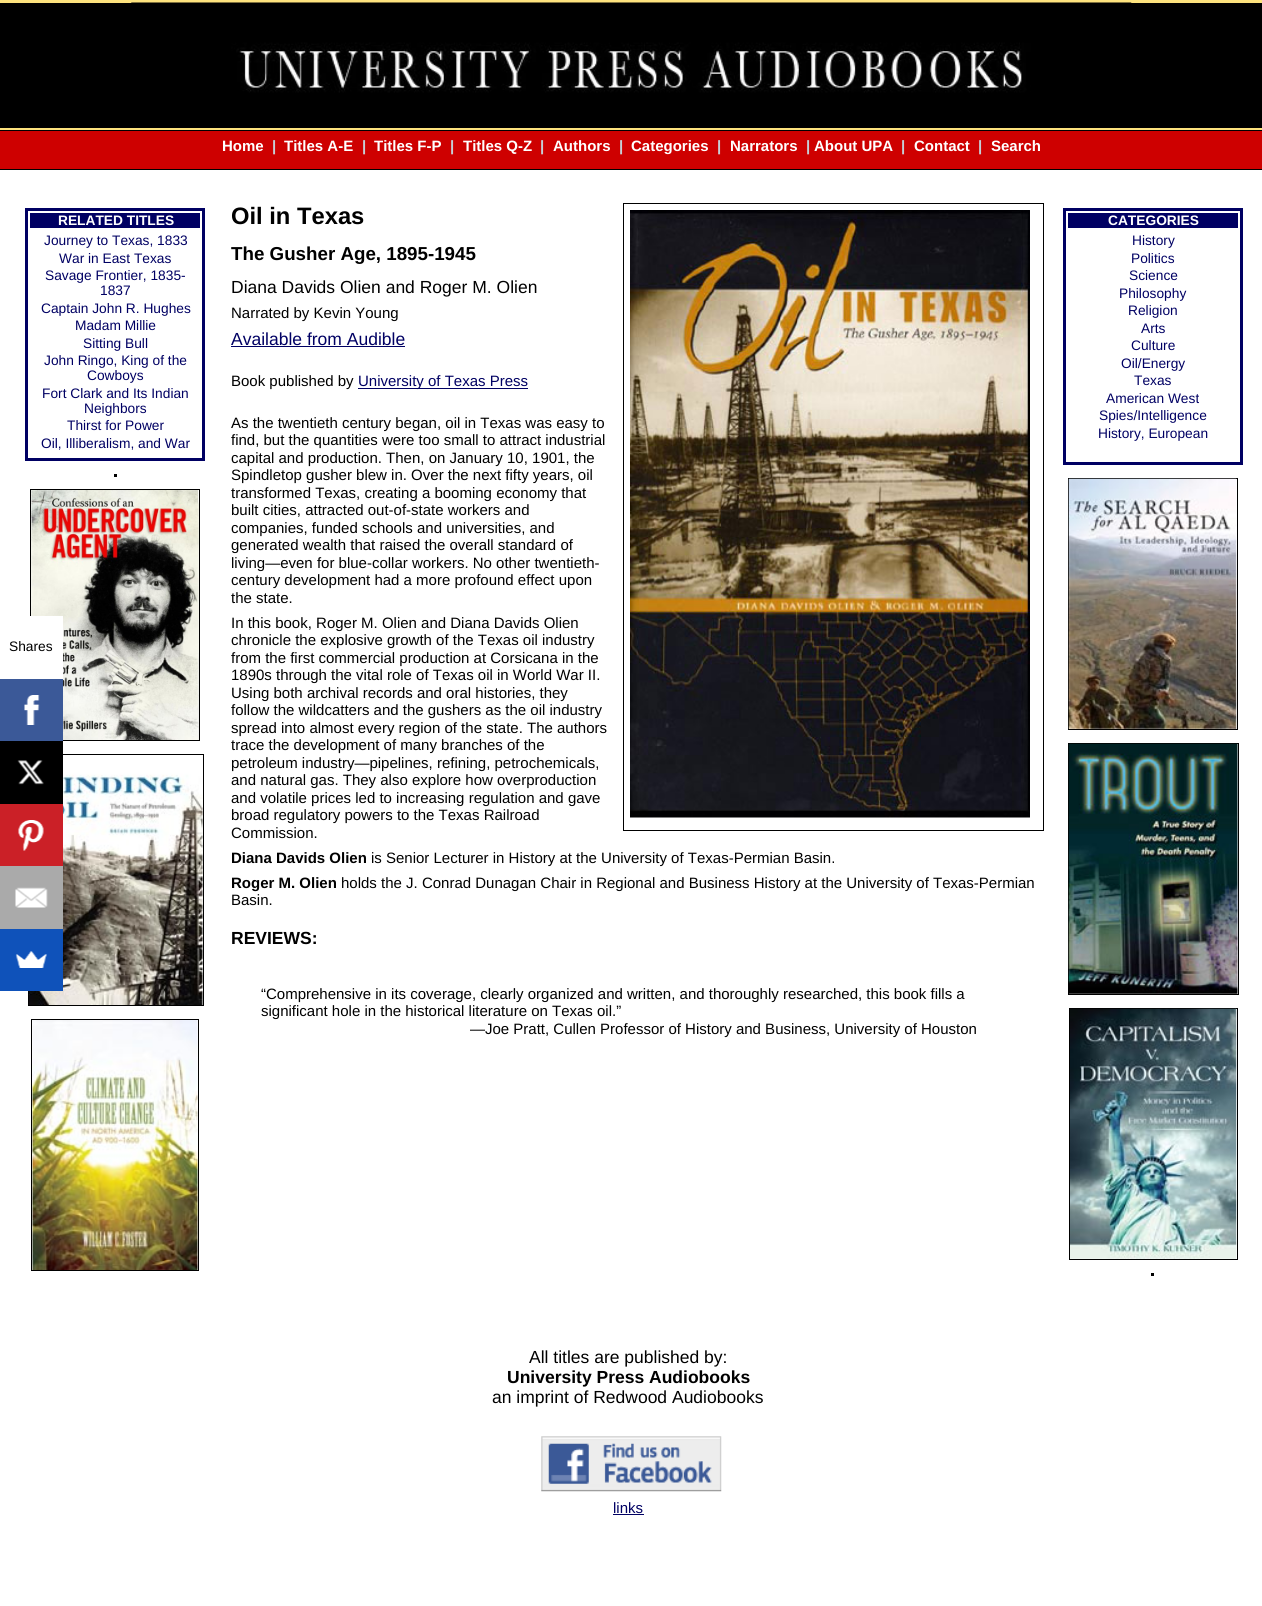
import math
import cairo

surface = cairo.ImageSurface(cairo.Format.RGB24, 1262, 1606)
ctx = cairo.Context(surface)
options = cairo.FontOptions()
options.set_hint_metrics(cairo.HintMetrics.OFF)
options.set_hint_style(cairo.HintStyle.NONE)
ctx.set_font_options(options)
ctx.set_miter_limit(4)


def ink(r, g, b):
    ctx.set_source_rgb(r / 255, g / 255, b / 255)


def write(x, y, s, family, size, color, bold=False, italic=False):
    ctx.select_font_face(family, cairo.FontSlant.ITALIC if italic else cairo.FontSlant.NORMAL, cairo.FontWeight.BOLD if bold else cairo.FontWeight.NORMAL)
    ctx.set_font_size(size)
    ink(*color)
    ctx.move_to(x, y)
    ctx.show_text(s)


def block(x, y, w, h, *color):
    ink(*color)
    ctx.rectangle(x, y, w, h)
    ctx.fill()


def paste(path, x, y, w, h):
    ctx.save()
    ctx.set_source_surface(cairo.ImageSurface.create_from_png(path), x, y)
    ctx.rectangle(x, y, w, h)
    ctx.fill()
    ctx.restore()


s1 = dict(family="Liberation Sans", size=15, color=(255, 255, 255), bold=True)
s2 = dict(family="Liberation Sans", size=15, color=(198, 207, 214), bold=True)
s3 = dict(family="Liberation Sans", size=13.75, color=(0, 0, 0))
s4 = dict(family="Liberation Sans", size=23.75, color=(0, 0, 0), bold=True)
s5 = dict(family="Liberation Sans", size=18.75, color=(0, 0, 0), bold=True)
s6 = dict(family="Liberation Sans", size=17.5, color=(0, 0, 0))
s7 = dict(family="Liberation Sans", size=15, color=(0, 0, 0))
s8 = dict(family="Liberation Sans", size=17.5, color=(0, 0, 99))
s9 = dict(family="Liberation Sans", size=15, color=(0, 0, 99))
s10 = dict(family="Liberation Sans", size=15, color=(0, 0, 0), bold=True)
s11 = dict(family="Liberation Sans", size=17.5, color=(0, 0, 0), bold=True)
s12 = dict(family="Liberation Sans", size=13.75, color=(255, 255, 255), bold=True)
s13 = dict(family="Liberation Sans", size=13.75, color=(0, 0, 99))

ink(255, 255, 255)
ctx.paint()
block(0, 3, 1262, 125, 0, 0, 0)
block(0, 0, 1262, 3, 254, 227, 126)
block(0, 128, 1262, 2, 254, 227, 126)
paste("pic1.png", 131, 2, 1001, 91)
block(0, 131, 1262, 38, 206, 0, 0)
block(0, 130, 1262, 1, 0, 0, 0)
block(0, 169, 1262, 1, 0, 0, 0)
write(222, 151, "Home", **s1)
write(272, 151, "|", **s2)
write(284, 151, "Titles A-E", **s1)
write(362, 151, "|", **s2)
write(374, 151, "Titles F-P", **s1)
write(450, 151, "|", **s2)
write(463, 151, "Titles Q-Z", **s1)
write(540, 151, "|", **s2)
write(553, 151, "Authors", **s1)
write(619, 151, "|", **s2)
write(631, 151, "Categories", **s1)
write(717, 151, "|", **s2)
write(730, 151, "Narrators", **s1)
write(806, 151, "|", **s2)
write(814, 151, "About UPA", **s1)
write(901, 151, "|", **s2)
write(914, 151, "Contact", **s1)
write(978, 151, "|", **s2)
write(991, 151, "Search", **s1)
ctx.rectangle(30.5, 489.5, 169, 251)
ink(0, 0, 0)
ctx.set_line_width(1)
ctx.stroke()
paste("pic8.png", 31, 490, 168, 250)
block(30, 616, 33, 63, 255, 255, 255)
write(9, 651, "Shares", **s3)
block(0, 679, 63, 62, 59, 89, 152)
paste("pic2.png", 24, 695, 16, 30)
ctx.rectangle(28.5, 754.5, 175, 251)
ink(0, 0, 0)
ctx.stroke()
paste("pic9.png", 28, 755, 175, 250)
block(0, 741, 63, 63, 0, 0, 0)
paste("pic3.png", 17, 760, 27, 25)
block(0, 804, 63, 62, 203, 32, 39)
paste("pic4.png", 18, 820, 26, 31)
block(0, 866, 63, 63, 170, 170, 170)
paste("pic5.png", 15, 887, 33, 21)
block(0, 929, 63, 62, 15, 82, 186)
paste("pic6.png", 15, 951, 32, 17)
write(231, 224, "Oil in Texas", **s4)
ctx.rectangle(623.5, 203.5, 420, 627)
ctx.stroke()
paste("pic7.png", 630, 210, 400, 608)
write(231, 260, "The Gusher Age, 1895-1945", **s5)
write(231, 293, "Diana Davids Olien and Roger M. Olien", **s6)
write(231, 318, "Narrated by Kevin Young", **s7)
write(231, 345, "Available from Audible", **s8)
block(231, 346, 174, 1, 0, 0, 99)
write(231, 386, "Book published by", **s7)
block(358, 388, 170, 1, 0, 0, 99)
write(358, 386, "University of Texas Press", **s9)
write(231, 428, "As the twentieth century began, oil in Texas was easy to", **s7)
write(231, 445, "find, but the quantities were too small to attract industrial", **s7)
write(231, 463, "capital and production. Then, on January 10, 1901, the", **s7)
write(231, 480, "Spindletop gusher blew in. Over the next fifty years, oil", **s7)
write(231, 498, "transformed Texas, creating a booming economy that", **s7)
write(231, 515, "built cities, attracted out-of-state workers and", **s7)
write(231, 533, "companies, funded schools and universities, and", **s7)
write(231, 550, "generated wealth that raised the overall standard of", **s7)
write(231, 568, "living—even for blue-collar workers. No other twentieth-", **s7)
write(231, 585, "century development had a more profound effect upon", **s7)
write(231, 603, "the state.", **s7)
write(231, 628, "In this book, Roger M. Olien and Diana Davids Olien", **s7)
write(231, 645, "chronicle the explosive growth of the Texas oil industry", **s7)
write(231, 663, "from the first commercial production at Corsicana in the", **s7)
write(231, 680, "1890s through the vital role of Texas oil in World War II.", **s7)
write(231, 698, "Using both archival records and oral histories, they", **s7)
write(231, 715, "follow the wildcatters and the gushers as the oil industry", **s7)
write(231, 733, "spread into almost every region of the state. The authors", **s7)
write(231, 750, "trace the development of many branches of the", **s7)
write(231, 768, "petroleum industry—pipelines, refining, petrochemicals,", **s7)
write(231, 785, "and natural gas. They also explore how overproduction", **s7)
write(231, 803, "and volatile prices led to increasing regulation and gave", **s7)
write(231, 820, "broad regulatory powers to the Texas Railroad", **s7)
write(231, 838, "Commission.", **s7)
write(231, 863, "Diana Davids Olien", **s10)
write(371, 863, "is Senior Lecturer in History at the University of Texas-Permian Basin.", **s7)
write(231, 888, "Roger M. Olien", **s10)
write(341, 888, "holds the J. Conrad Dunagan Chair in Regional and Business History at the University of Texas-Permian", **s7)
write(231, 905, "Basin.", **s7)
write(231, 944, "REVIEWS:", **s11)
write(261, 999, "“Comprehensive in its coverage, clearly organized and written, and thoroughly researched, this book fills a", **s7)
write(261, 1016, "significant hole in the historical literature on Texas oil.”", **s7)
write(470, 1034, "—Joe Pratt, Cullen Professor of History and Business, University of Houston", **s7)
ctx.rectangle(26.5, 209.5, 177, 250)
ink(0, 0, 99)
ctx.set_line_width(3)
ctx.stroke()
block(30, 213, 170, 15, 0, 0, 99)
write(58, 225, "RELATED TITLES", **s12)
write(44, 245, "Journey to Texas, 1833", **s13)
write(59, 263, "War in East Texas", **s13)
write(45, 280, "Savage Frontier, 1835-", **s13)
write(100, 295, "1837", **s13)
write(41, 313, "Captain John R. Hughes", **s13)
write(75, 330, "Madam Millie", **s13)
write(83, 348, "Sitting Bull", **s13)
write(44, 365, "John Ringo, King of the", **s13)
write(87, 380, "Cowboys", **s13)
write(42, 398, "Fort Clark and Its Indian", **s13)
write(84, 413, "Neighbors", **s13)
write(67, 430, "Thirst for Power", **s13)
write(41, 448, "Oil, Illiberalism, and War", **s13)
block(114, 474, 3, 3, 0, 0, 0)
ctx.rectangle(31.5, 1019.5, 167, 251)
ctx.set_line_width(1)
ctx.stroke()
paste("pic10.png", 32, 1020, 166, 250)
ctx.rectangle(1064.5, 209.5, 177, 254)
ink(0, 0, 99)
ctx.set_line_width(3)
ctx.stroke()
block(1068, 213, 170, 15, 0, 0, 99)
write(1108, 225, "CATEGORIES", **s12)
write(1132, 245, "History", **s13)
write(1131, 263, "Politics", **s13)
write(1129, 280, "Science", **s13)
write(1119, 298, "Philosophy", **s13)
write(1128, 315, "Religion", **s13)
write(1141, 333, "Arts", **s13)
write(1131, 350, "Culture", **s13)
write(1121, 368, "Oil/Energy", **s13)
write(1134, 385, "Texas", **s13)
write(1106, 403, "American West", **s13)
write(1099, 420, "Spies/Intelligence", **s13)
write(1098, 438, "History, European", **s13)
ctx.rectangle(1068.5, 478.5, 169, 251)
ink(0, 0, 0)
ctx.set_line_width(1)
ctx.stroke()
paste("pic11.png", 1068, 478, 169, 251)
ctx.rectangle(1068.5, 743.5, 170, 251)
ctx.stroke()
paste("pic12.png", 1068, 743, 170, 251)
ctx.rectangle(1069.5, 1008.5, 168, 251)
ctx.stroke()
paste("pic13.png", 1070, 1008, 167, 251)
block(1151, 1273, 3, 3, 0, 0, 0)
write(529, 1363, "All titles are published by:", **s6)
write(507, 1383, "University Press Audiobooks", **s11)
write(492, 1403, "an imprint of Redwood Audiobooks", **s6)
paste("pic14.png", 541, 1436, 181, 56)
write(613, 1513, "links", **s9)
block(613, 1514, 31, 1, 0, 0, 99)
surface.write_to_png("screenshot.png")
